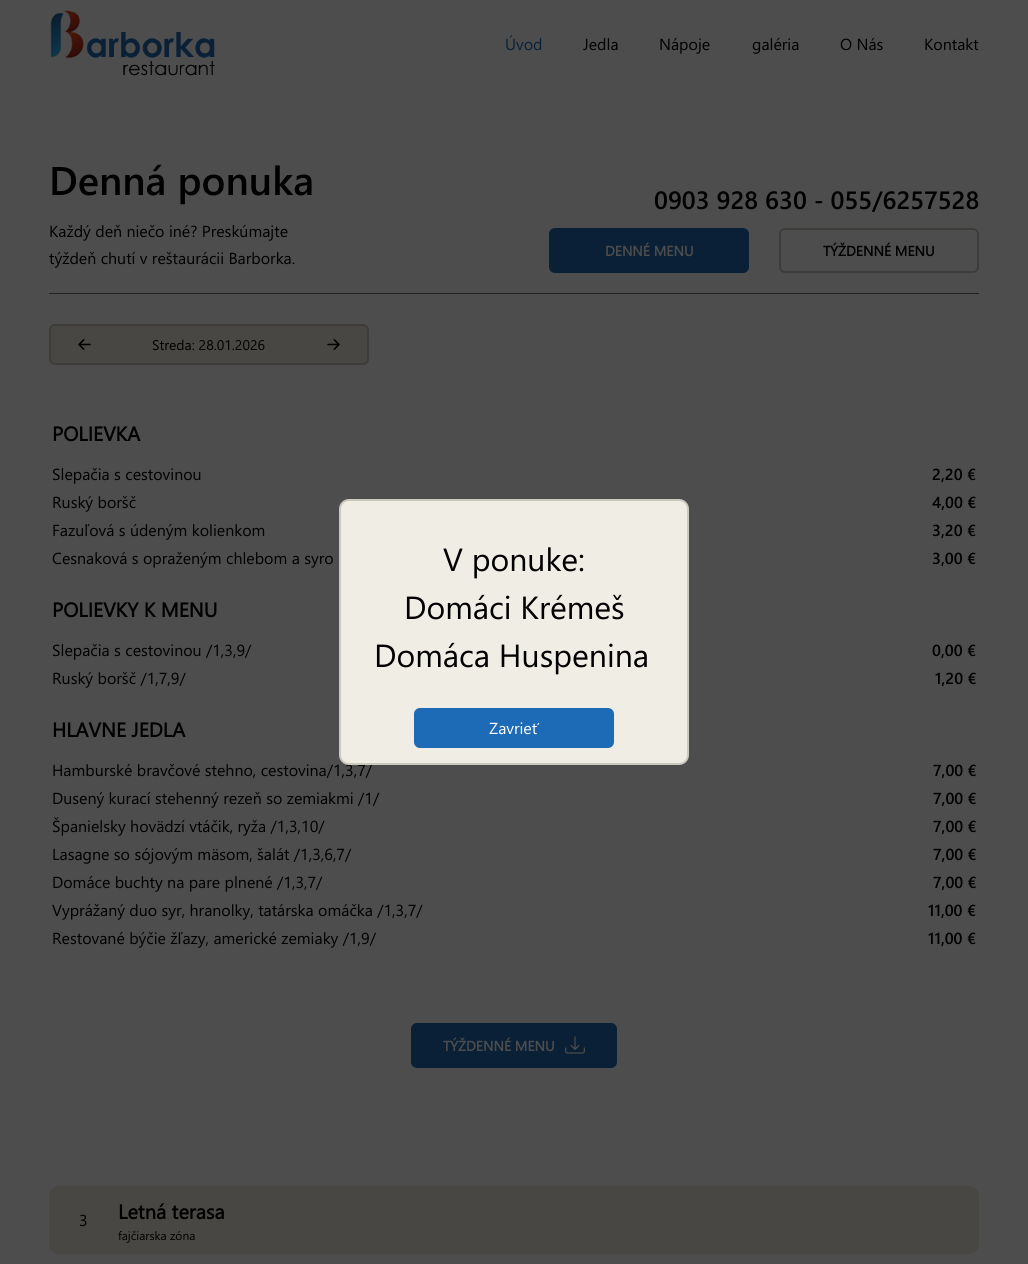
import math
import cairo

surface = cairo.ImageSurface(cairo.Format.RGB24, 1028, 1264)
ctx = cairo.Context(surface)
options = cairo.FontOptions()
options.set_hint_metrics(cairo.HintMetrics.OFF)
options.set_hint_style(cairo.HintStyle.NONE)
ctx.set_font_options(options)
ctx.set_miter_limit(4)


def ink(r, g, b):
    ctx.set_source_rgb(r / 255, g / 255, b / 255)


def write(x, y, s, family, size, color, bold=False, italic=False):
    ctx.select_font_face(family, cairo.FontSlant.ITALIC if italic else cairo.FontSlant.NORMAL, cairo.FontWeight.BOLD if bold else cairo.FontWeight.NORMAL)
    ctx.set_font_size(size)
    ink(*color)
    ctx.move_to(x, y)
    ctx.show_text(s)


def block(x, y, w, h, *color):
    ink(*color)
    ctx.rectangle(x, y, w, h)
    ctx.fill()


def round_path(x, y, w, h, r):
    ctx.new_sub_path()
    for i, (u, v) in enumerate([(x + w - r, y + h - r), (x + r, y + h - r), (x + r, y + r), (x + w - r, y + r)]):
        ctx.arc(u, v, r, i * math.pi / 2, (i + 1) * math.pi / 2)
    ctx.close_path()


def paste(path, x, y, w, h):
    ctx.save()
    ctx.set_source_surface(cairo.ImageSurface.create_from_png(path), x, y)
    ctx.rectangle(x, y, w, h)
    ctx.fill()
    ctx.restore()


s1 = dict(family="Segoe UI", size=16, color=(9, 32, 55))
s2 = dict(family="Segoe UI", size=16, color=(0, 0, 0))
s3 = dict(family="Segoe UI SemiBold", size=40, color=(0, 0, 0))
s4 = dict(family="Segoe UI SemiBold", size=25, color=(0, 0, 0))
s5 = dict(family="Segoe UI", size=14, color=(77, 77, 77), bold=True)
s6 = dict(family="Segoe UI", size=14, color=(0, 0, 0), bold=True)
s7 = dict(family="Segoe UI", size=14, color=(0, 0, 0))
s8 = dict(family="Segoe UI", size=20, color=(0, 0, 0), bold=True)
s9 = dict(family="Segoe UI SemiBold", size=16, color=(0, 0, 0))
s10 = dict(family="Segoe UI", size=32, color=(0, 0, 0))
s11 = dict(family="Segoe UI", size=16, color=(255, 255, 255))
s12 = dict(family="Segoe UI", size=12, color=(0, 0, 0))

ink(77, 77, 77)
ctx.paint()
paste("pic1.png", 50, 10, 165, 66)
write(505, 50, "Úvod", **s1)
write(583, 50, "Jedla", **s2)
write(659, 50, "Nápoje", **s2)
write(752, 50, "galéria", **s2)
write(840, 50, "O Nás", **s2)
write(924, 50, "Kontakt", **s2)
block(49, 293, 930, 1, 34, 34, 34)
write(49, 195, "Denná ponuka", **s3)
write(49, 237, "Každý deň niečo iné? Preskúmajte", **s2)
write(49, 264, "týždeň chutí v reštaurácii Barborka.", **s2)
write(654, 209, "0903 928 630 - 055/6257528", **s4)
ink(9, 32, 55)
round_path(550, 229, 198, 43, 5)
ctx.fill_preserve()
ctx.stroke()
write(605, 256, "DENNÉ MENU", **s5)
round_path(780, 229, 198, 43, 5)
ink(61, 60, 57)
ctx.stroke()
write(823, 256, "TÝŽDENNÉ MENU", **s6)
ink(72, 71, 68)
round_path(50, 325, 318, 39, 5)
ctx.fill_preserve()
ink(61, 60, 57)
ctx.stroke()
paste("pic2.png", 78, 339, 13, 11)
write(152, 350, "Streda: 28.01.2026", **s7)
paste("pic3.png", 327, 339, 13, 11)
write(52, 441, "POLIEVKA", **s8)
write(52, 480, "Slepačia s cestovinou", **s2)
write(932, 480, "2,20 €", **s9)
write(52, 508, "Ruský boršč", **s2)
write(932, 508, "4,00 €", **s9)
write(52, 536, "Fazuľová s údeným kolienkom", **s2)
write(932, 536, "3,20 €", **s9)
write(52, 564, "Cesnaková s opraženým chlebom a syro", **s2)
write(932, 564, "3,00 €", **s9)
write(52, 617, "POLIEVKY K MENU", **s8)
write(52, 656, "Slepačia s cestovinou /1,3,9/", **s2)
write(932, 656, "0,00 €", **s9)
write(52, 684, "Ruský boršč /1,7,9/", **s2)
write(935, 684, "1,20 €", **s9)
write(52, 737, "HLAVNE JEDLA", **s8)
write(52, 776, "Hamburské bravčové stehno, cestovina/1,3,7/", **s2)
write(933, 776, "7,00 €", **s9)
write(52, 804, "Dusený kurací stehenný rezeň so zemiakmi /1/", **s2)
write(933, 804, "7,00 €", **s9)
write(52, 832, "Španielsky hovädzí vtáčik, ryža /1,3,10/", **s2)
write(933, 832, "7,00 €", **s9)
write(52, 860, "Lasagne so sójovým mäsom, šalát /1,3,6,7/", **s2)
write(933, 860, "7,00 €", **s9)
write(52, 888, "Domáce buchty na pare plnené /1,3,7/", **s2)
write(933, 888, "7,00 €", **s9)
write(52, 916, "Vyprážaný duo syr, hranolky, tatárska omáčka /1,3,7/", **s2)
write(928, 916, "11,00 €", **s9)
write(52, 944, "Restované býčie žľazy, americké zemiaky /1,9/", **s2)
write(928, 944, "11,00 €", **s9)
ink(9, 32, 55)
round_path(412, 1024, 204, 43, 5)
ctx.fill_preserve()
ctx.stroke()
write(443, 1051, "TÝŽDENNÉ MENU", **s5)
paste("pic4.png", 565, 1036, 20, 18)
ink(240, 237, 228)
round_path(340, 500, 348, 264, 9)
ctx.fill_preserve()
ink(204, 201, 190)
ctx.stroke()
write(443, 571, "V ponuke:", **s10)
write(404, 619, "Domáci Krémeš", **s10)
write(374, 667, "Domáca Huspenina", **s10)
ink(29, 106, 182)
round_path(415, 709, 198, 38, 5)
ctx.fill_preserve()
ctx.stroke()
write(489, 734, "Zavrieť", **s11)
ink(72, 71, 68)
round_path(49, 1186, 930, 68, 10)
ctx.fill()
write(79, 1226, "3", **s2)
write(118, 1219, "Letná terasa", **s8)
write(118, 1240, "fajčiarska zóna", **s12)
surface.write_to_png("screenshot.png")
